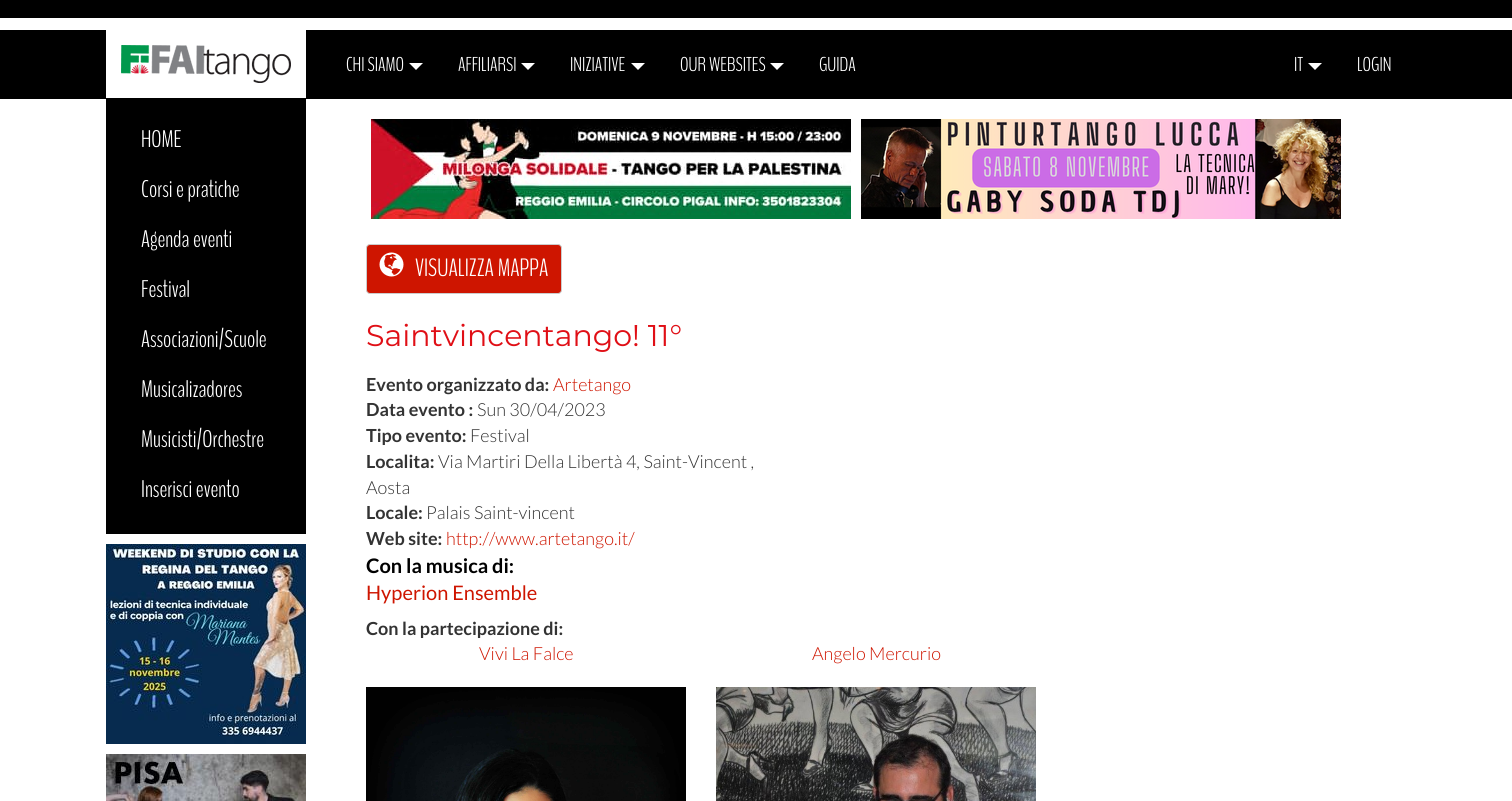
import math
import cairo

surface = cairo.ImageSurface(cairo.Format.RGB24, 1512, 801)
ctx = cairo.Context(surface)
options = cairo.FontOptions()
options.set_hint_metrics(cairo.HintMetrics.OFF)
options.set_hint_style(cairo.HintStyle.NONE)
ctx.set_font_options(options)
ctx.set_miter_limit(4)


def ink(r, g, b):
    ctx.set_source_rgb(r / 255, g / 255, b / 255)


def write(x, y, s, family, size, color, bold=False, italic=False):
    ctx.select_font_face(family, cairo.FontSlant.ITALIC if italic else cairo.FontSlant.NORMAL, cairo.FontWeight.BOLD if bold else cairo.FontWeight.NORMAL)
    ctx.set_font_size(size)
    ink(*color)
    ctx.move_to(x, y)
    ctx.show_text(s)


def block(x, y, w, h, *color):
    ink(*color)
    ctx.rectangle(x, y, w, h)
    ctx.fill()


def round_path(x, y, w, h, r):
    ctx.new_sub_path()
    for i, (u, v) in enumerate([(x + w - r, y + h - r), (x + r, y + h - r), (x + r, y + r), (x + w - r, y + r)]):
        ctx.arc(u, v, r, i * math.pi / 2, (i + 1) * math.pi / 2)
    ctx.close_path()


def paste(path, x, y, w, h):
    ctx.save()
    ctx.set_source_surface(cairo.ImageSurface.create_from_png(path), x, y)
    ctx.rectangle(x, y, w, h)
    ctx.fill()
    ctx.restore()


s1 = dict(family="BenchNine Light", size=20, color=(255, 255, 255))
s2 = dict(family="BenchNine Light", size=24, color=(255, 255, 255))
s3 = dict(family="BenchNine Light", size=25, color=(255, 255, 255))
s4 = dict(family="Montserrat", size=30, color=(224, 15, 22))
s5 = dict(family="Lato", size=18, color=(51, 51, 51), bold=True)
s6 = dict(family="Lato Light", size=18, color=(206, 21, 0))
s7 = dict(family="Lato Light", size=18, color=(51, 51, 51))
s8 = dict(family="Lato", size=20, color=(0, 0, 0), bold=True)
s9 = dict(family="Lato", size=20, color=(206, 21, 0))

ink(255, 255, 255)
ctx.paint()
block(0, 0, 1512, 99, 0, 0, 0)
block(0, 18, 1512, 12, 255, 255, 255)
block(106, 30, 200, 68, 255, 255, 255)
paste("pic1.png", 121, 45, 170, 38)
write(346, 71, "CHI SIAMO", **s1)
ctx.new_path()
ctx.move_to(409, 63)
ctx.line_to(423, 63)
ctx.line_to(416, 70)
ctx.close_path()
ctx.fill()
write(458, 71, "AFFILIARSI", **s1)
ctx.new_path()
ctx.move_to(521, 63)
ctx.line_to(535, 63)
ctx.line_to(528, 70)
ctx.close_path()
ctx.fill()
write(570, 71, "INIZIATIVE", **s1)
ctx.new_path()
ctx.move_to(631, 63)
ctx.line_to(645, 63)
ctx.line_to(638, 70)
ctx.close_path()
ctx.fill()
write(680, 71, "OUR WEBSITES", **s1)
ctx.new_path()
ctx.move_to(770, 63)
ctx.line_to(784, 63)
ctx.line_to(777, 70)
ctx.close_path()
ctx.fill()
write(819, 71, "GUIDA", **s1)
write(1294, 71, "IT", **s1)
ctx.new_path()
ctx.move_to(1308, 63)
ctx.line_to(1322, 63)
ctx.line_to(1315, 70)
ctx.close_path()
ctx.fill()
write(1357, 71, "LOGIN", **s1)
block(106, 99, 200, 435, 0, 0, 0)
write(141, 147, "HOME", **s2)
write(141, 197, "Corsi e pratiche", **s2)
write(141, 247, "Agenda eventi", **s2)
write(141, 297, "Festival", **s2)
write(141, 347, "Associazioni/Scuole", **s2)
write(141, 397, "Musicalizadores", **s2)
write(141, 447, "Musicisti/Orchestre", **s2)
write(141, 497, "Inserisci evento", **s2)
paste("pic2.png", 371, 119, 480, 100)
paste("pic3.png", 861, 119, 480, 100)
ink(206, 21, 0)
round_path(366.5, 244.5, 195, 49, 3.5)
ctx.fill_preserve()
ink(204, 204, 204)
ctx.set_line_width(1)
ctx.stroke()
paste("pic4.png", 379, 252, 25, 25)
write(415, 276, "VISUALIZZA MAPPA", **s3)
write(366, 346, "Saintvincentango! 11°", **s4)
write(366, 391, "Evento organizzato da:", **s5)
write(553, 391, "Artetango", **s6)
write(366, 416, "Data evento :", **s5)
write(477, 416, "Sun 30/04/2023", **s7)
write(366, 442, "Tipo evento:", **s5)
write(470, 442, "Festival", **s7)
write(366, 468, "Localita:", **s5)
write(438, 468, "Via Martiri Della Libertà 4, Saint-Vincent ,", **s7)
write(366, 494, "Aosta", **s7)
write(366, 519, "Locale:", **s5)
write(426, 519, "Palais Saint-vincent", **s7)
write(366, 545, "Web site:", **s5)
write(446, 545, "http://www.artetango.it/", **s6)
write(366, 573, "Con la musica di:", **s8)
write(366, 600, "Hyperion Ensemble", **s9)
write(366, 635, "Con la partecipazione di:", **s5)
write(479, 660, "Vivi La Falce", **s6)
paste("pic5.png", 366, 687, 320, 114)
write(812, 660, "Angelo Mercurio", **s6)
paste("pic6.png", 716, 687, 320, 114)
paste("pic7.png", 106, 544, 200, 200)
paste("pic8.png", 106, 754, 200, 47)
surface.write_to_png("screenshot.png")
